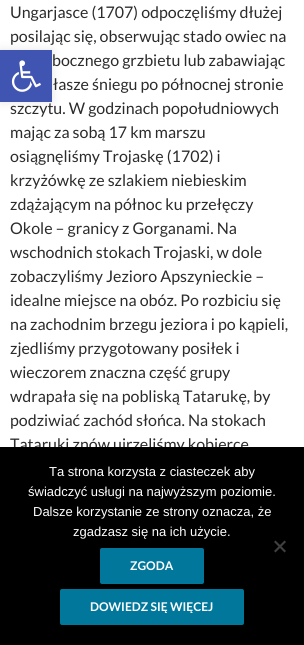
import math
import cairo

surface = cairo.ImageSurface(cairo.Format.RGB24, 304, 645)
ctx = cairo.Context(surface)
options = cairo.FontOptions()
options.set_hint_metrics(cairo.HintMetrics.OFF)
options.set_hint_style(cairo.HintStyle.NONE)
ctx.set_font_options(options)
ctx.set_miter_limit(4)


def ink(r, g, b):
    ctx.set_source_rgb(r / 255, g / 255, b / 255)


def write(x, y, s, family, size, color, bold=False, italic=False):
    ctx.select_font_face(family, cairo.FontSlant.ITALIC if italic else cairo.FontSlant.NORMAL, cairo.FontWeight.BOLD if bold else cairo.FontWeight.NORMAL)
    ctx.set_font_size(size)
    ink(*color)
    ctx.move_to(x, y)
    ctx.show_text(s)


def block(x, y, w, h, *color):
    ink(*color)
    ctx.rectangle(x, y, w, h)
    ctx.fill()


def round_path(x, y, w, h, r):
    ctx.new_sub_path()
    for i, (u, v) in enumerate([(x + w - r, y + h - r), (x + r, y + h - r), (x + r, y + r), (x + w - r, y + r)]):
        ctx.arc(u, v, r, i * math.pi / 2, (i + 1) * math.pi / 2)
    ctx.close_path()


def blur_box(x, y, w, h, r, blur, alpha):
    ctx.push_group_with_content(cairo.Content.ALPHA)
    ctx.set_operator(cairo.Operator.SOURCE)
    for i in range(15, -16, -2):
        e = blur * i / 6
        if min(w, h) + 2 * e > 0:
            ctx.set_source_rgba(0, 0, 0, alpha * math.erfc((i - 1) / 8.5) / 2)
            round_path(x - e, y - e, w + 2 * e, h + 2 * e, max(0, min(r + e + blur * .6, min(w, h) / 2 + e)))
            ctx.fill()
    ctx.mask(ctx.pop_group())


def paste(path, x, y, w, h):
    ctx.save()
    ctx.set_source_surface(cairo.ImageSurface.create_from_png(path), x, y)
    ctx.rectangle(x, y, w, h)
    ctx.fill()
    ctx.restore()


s1 = dict(family="Lato", size=16, color=(43, 43, 43))
s2 = dict(family="Liberation Sans", size=13, color=(255, 255, 255))
s3 = dict(family="Lato", size=12, color=(255, 255, 255), bold=True)

ink(255, 255, 255)
ctx.paint()
write(10, 18, "Ungarjasce (1707) odpoczęliśmy dłużej", **s1)
write(10, 42, "posilając się, obserwując stado owiec na", **s1)
write(52, 66, "bocznego grzbietu lub zabawiając", **s1)
write(53, 90, "łasze śniegu po północnej stronie", **s1)
write(10, 114, "szczytu. W godzinach popołudniowych", **s1)
write(10, 138, "mając za sobą 17 km marszu", **s1)
write(10, 162, "osiągnęliśmy Trojaskę (1702) i", **s1)
write(10, 186, "krzyżówkę ze szlakiem niebieskim", **s1)
write(10, 210, "zdążającym na północ ku przełęczy", **s1)
write(10, 234, "Okole – granicy z Gorganami. Na", **s1)
write(10, 258, "wschodnich stokach Trojaski, w dole", **s1)
write(10, 282, "zobaczyliśmy Jezioro Apszynieckie –", **s1)
write(10, 306, "idealne miejsce na obóz. Po rozbiciu się", **s1)
write(10, 330, "na zachodnim brzegu jeziora i po kąpieli,", **s1)
write(10, 354, "zjedliśmy przygotowany posiłek i", **s1)
write(10, 378, "wieczorem znaczna część grupy", **s1)
write(10, 402, "wdrapała się na pobliską Tatarukę, by", **s1)
write(10, 426, "podziwiać zachód słońca. Na stokach", **s1)
write(10, 450, "Tataruki znów ujrzeliśmy kobierce", **s1)
ink(0, 0, 0)
blur_box(0, 50, 52, 52, 0, 5, 0.1)
block(0, 50, 52, 52, 64, 84, 178)
paste("pic1.png", 11, 60, 30, 32)
block(0, 447, 304, 198, 0, 0, 0)
write(49, 476, "Ta strona korzysta z ciasteczek aby", **s2)
write(28, 496, "świadczyć usługi na najwyższym poziomie.", **s2)
write(33, 516, "Dalsze korzystanie ze strony oznacza, że", **s2)
write(73, 536, "zgadzasz się na ich użycie.", **s2)
ink(64, 64, 64)
ctx.new_path()
ctx.move_to(284.5, 540.5)
ctx.line_to(286, 542)
ctx.line_to(275.5, 552.5)
ctx.line_to(274, 551)
ctx.close_path()
ctx.fill()
ctx.new_path()
ctx.move_to(274, 542)
ctx.line_to(275.5, 540.5)
ctx.line_to(286, 551)
ctx.line_to(284.5, 552.5)
ctx.close_path()
ctx.fill()
ink(0, 119, 155)
round_path(100, 548, 104, 36, 2)
ctx.fill()
write(130, 570, "ZGODA", **s3)
ink(0, 119, 155)
round_path(60, 589, 184, 36, 2)
ctx.fill()
write(90, 611, "DOWIEDZ SIĘ WIĘCEJ", **s3)
surface.write_to_png("screenshot.png")
